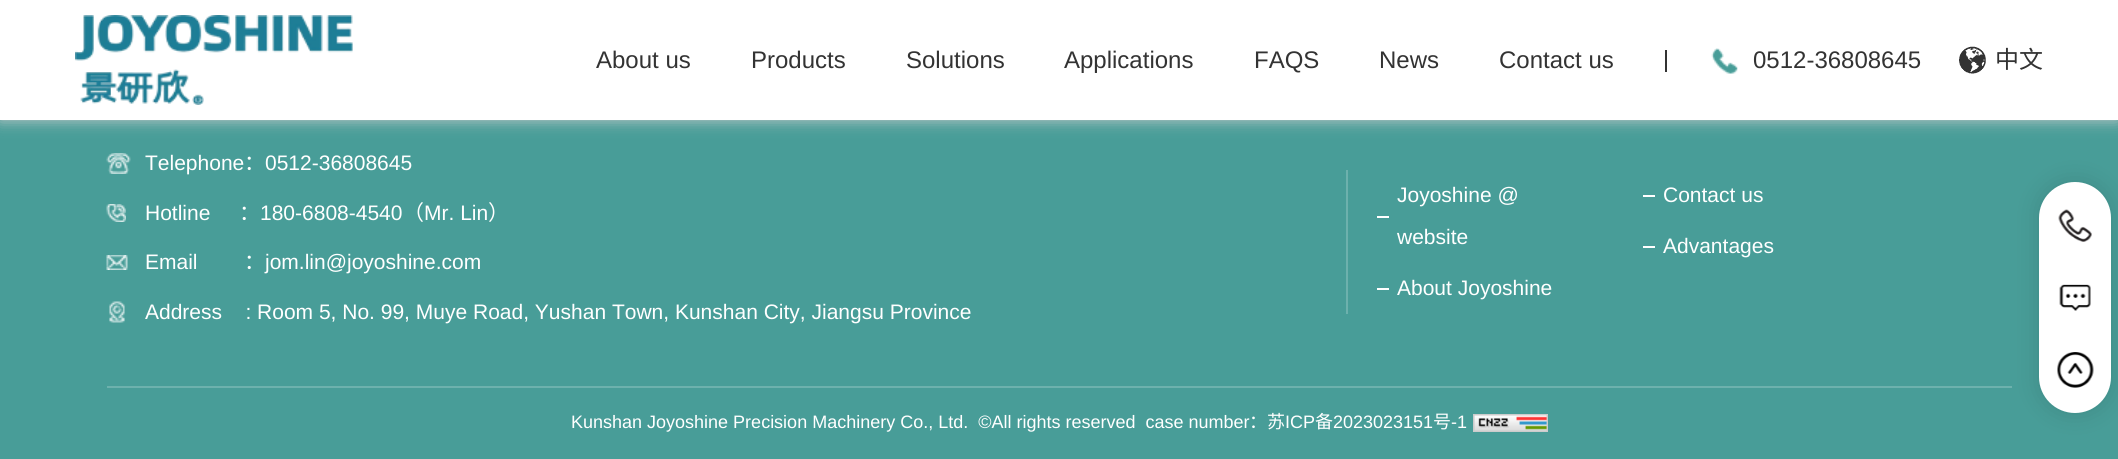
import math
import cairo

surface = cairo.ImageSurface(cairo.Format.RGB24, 2118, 459)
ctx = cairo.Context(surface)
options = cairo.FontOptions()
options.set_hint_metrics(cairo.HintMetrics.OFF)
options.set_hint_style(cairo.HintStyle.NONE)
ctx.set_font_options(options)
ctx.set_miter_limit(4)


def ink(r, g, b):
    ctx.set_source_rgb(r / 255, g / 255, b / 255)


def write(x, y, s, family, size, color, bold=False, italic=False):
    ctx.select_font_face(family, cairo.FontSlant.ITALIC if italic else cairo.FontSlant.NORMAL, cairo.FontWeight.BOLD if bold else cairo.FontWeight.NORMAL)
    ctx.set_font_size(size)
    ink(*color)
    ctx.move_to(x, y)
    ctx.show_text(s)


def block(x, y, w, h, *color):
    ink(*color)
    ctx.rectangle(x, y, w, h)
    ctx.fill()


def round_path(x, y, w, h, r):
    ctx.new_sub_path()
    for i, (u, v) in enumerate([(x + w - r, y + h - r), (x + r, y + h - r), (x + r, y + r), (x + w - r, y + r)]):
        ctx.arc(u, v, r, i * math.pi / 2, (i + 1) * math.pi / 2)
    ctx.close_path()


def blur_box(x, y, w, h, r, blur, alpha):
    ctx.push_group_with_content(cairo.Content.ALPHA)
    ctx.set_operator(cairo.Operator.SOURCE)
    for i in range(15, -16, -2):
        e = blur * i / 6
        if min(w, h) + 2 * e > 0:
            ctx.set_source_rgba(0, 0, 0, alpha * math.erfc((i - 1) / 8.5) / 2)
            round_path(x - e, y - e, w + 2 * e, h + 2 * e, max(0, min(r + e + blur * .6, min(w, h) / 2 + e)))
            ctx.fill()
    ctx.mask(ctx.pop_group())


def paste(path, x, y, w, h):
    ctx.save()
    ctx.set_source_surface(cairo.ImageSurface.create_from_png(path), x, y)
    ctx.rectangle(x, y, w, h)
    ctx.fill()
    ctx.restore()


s1 = dict(family="Liberation Sans", size=24, color=(51, 51, 51))
s2 = dict(family="Noto Sans CJK SC", size=24, color=(51, 51, 51))
s3 = dict(family="Liberation Sans", size=21, color=(255, 255, 255))
s4 = dict(family="Noto Sans CJK SC", size=21, color=(255, 255, 255))
s5 = dict(family="Liberation Sans", size=18, color=(255, 255, 255))
s6 = dict(family="Noto Sans CJK SC", size=18, color=(255, 255, 255))

ink(72, 157, 152)
ctx.paint()
ink(204, 204, 204)
blur_box(0, 0, 2118, 120, 0, 7.5, 1)
block(0, 0, 2118, 120, 255, 255, 255)
paste("pic1.png", 75, 15, 278, 90)
write(596, 68, "About us", **s1)
write(751, 68, "Products", **s1)
write(906, 68, "Solutions", **s1)
write(1064, 68, "Applications", **s1)
write(1254, 68, "FAQS", **s1)
write(1379, 68, "News", **s1)
write(1499, 68, "Contact us", **s1)
block(1665, 50, 2, 22, 51, 51, 51)
paste("pic2.png", 1711, 48, 27, 26)
write(1753, 68, "0512-36808645", **s1)
paste("pic3.png", 1959, 46, 27, 28)
write(1995, 68, "中文", **s2)
paste("pic4.png", 106, 153, 25, 21)
write(145, 170, "Telephone", **s3)
write(244, 170, "：", **s4)
write(265, 170, "0512-36808645", **s3)
paste("pic5.png", 106, 204, 20, 18)
write(145, 220, "Hotline", **s3)
write(239, 220, "：", **s4)
write(260, 220, "180-6808-4540", **s3)
write(403, 220, "（", **s4)
write(424, 220, "Mr. Lin", **s3)
write(488, 220, "）", **s4)
paste("pic6.png", 106, 255, 22, 15)
write(145, 269, "Email", **s3)
write(244, 269, "：", **s4)
write(265, 269, "jom.lin@joyoshine.com", **s3)
paste("pic7.png", 109, 301, 16, 22)
write(145, 319, "Address    : Room 5, No. 99, Muye Road, Yushan Town, Kunshan City, Jiangsu Province", **s3)
block(1346, 170, 2, 144, 109, 177, 173)
write(1397, 202, "Joyoshine @", **s3)
block(1377, 216, 12, 2, 255, 255, 255)
write(1397, 244, "website", **s3)
block(1377, 288, 12, 2, 255, 255, 255)
write(1397, 295, "About Joyoshine", **s3)
block(1643, 195, 12, 2, 255, 255, 255)
write(1663, 202, "Contact us", **s3)
block(1643, 246, 12, 2, 255, 255, 255)
write(1663, 253, "Advantages", **s3)
block(107, 386, 1905, 2, 109, 177, 173)
write(571, 428, "Kunshan Joyoshine Precision Machinery Co., Ltd.  ©All rights reserved  case number", **s5)
write(1249, 428, "：苏", **s6)
write(1285, 428, "ICP", **s5)
write(1315, 428, "备", **s6)
write(1333, 428, "2023023151", **s5)
write(1433, 428, "号", **s6)
write(1451, 428, "-1", **s5)
paste("pic8.png", 1473, 414, 75, 18)
ink(0, 0, 0)
blur_box(2039, 182, 72, 231, 36, 12, 0.13)
ink(255, 255, 255)
round_path(2039, 182, 72, 231, 36)
ctx.fill()
paste("pic9.png", 2058, 209, 34, 33)
paste("pic10.png", 2059, 284, 32, 27)
paste("pic11.png", 2057, 352, 37, 36)
surface.write_to_png("screenshot.png")
